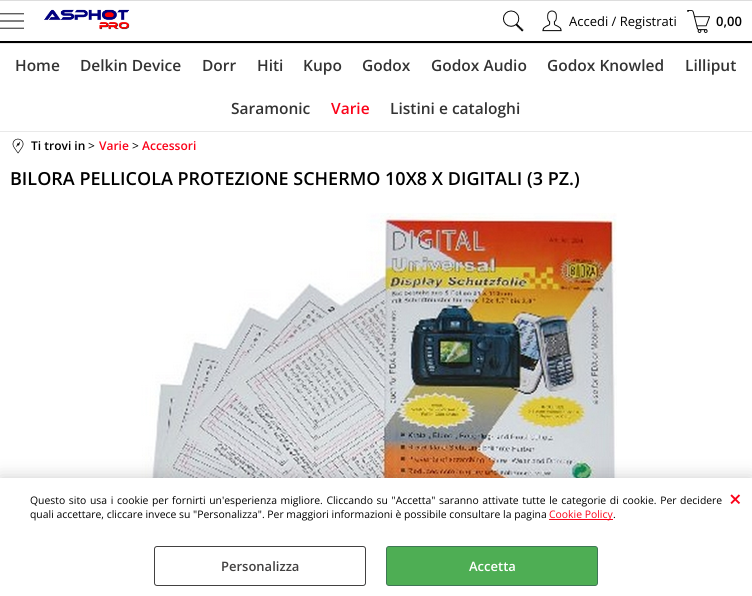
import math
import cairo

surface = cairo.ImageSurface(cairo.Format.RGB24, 752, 596)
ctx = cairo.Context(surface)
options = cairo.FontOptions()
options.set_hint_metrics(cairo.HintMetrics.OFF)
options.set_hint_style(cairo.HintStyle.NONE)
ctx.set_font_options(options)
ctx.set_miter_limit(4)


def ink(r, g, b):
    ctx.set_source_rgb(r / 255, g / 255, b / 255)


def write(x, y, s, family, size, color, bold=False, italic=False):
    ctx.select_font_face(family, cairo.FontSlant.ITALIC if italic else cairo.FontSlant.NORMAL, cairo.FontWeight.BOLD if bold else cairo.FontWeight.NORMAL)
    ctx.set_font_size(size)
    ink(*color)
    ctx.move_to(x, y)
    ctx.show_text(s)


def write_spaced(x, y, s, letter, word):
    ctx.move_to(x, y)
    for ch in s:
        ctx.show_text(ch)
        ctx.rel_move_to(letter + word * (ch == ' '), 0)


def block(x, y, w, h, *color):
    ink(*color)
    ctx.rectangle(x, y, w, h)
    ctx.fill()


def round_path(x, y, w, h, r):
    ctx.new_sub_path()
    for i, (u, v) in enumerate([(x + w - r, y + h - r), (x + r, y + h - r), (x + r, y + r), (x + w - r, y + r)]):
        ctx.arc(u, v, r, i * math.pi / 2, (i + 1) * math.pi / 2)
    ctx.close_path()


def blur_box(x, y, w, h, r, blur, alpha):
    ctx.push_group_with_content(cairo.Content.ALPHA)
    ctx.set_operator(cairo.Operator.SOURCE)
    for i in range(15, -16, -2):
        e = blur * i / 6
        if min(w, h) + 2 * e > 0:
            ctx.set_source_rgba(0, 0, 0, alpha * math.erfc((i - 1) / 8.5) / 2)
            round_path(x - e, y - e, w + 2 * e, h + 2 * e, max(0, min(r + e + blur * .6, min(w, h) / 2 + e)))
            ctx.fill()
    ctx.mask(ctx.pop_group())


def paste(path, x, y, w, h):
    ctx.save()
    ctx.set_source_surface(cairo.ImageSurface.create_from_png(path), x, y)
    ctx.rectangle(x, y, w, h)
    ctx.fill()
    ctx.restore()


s1 = dict(family="Open Sans", size=13, color=(0, 0, 0))
s2 = dict(family="Open Sans SemiBold", size=13, color=(0, 0, 0))
s3 = dict(family="Open Sans SemiBold", size=15.5, color=(51, 51, 51))
s4 = dict(family="Open Sans SemiBold", size=15.5, color=(251, 2, 25))
s5 = dict(family="Open Sans SemiBold", size=12, color=(0, 0, 0))
s6 = dict(family="Open Sans", size=12, color=(0, 0, 0))
s7 = dict(family="Open Sans SemiBold", size=12, color=(251, 2, 25))
s8 = dict(family="Open Sans SemiBold", size=18, color=(0, 0, 0))
s9 = dict(family="Open Sans", size=10.4, color=(0, 0, 0))
s10 = dict(family="Open Sans", size=10.4, color=(251, 2, 25))
s11 = dict(family="Open Sans SemiBold", size=22, color=(251, 2, 25))
s12 = dict(family="Open Sans SemiBold", size=13, color=(66, 65, 65))
s13 = dict(family="Open Sans SemiBold", size=13, color=(255, 255, 255))

ink(255, 255, 255)
ctx.paint()
block(0, 0, 752, 1, 221, 221, 221)
block(0, 41, 752, 2, 0, 0, 0)
paste("pic1.png", 0, 13, 24, 16)
paste("pic2.png", 44, 9, 86, 21)
paste("pic3.png", 503, 10, 21, 22)
paste("pic4.png", 542, 10, 20, 22)
write(569, 26, "Accedi / Registrati", **s1)
paste("pic5.png", 687, 10, 23, 23)
write(716, 26, "0,00", **s2)
block(0, 43, 752, 1, 233, 233, 233)
block(0, 131, 752, 1, 233, 233, 233)
write(15, 71, "Home", **s3)
write(80, 71, "Delkin Device", **s3)
write(202, 71, "Dorr", **s3)
write(257, 71, "Hiti", **s3)
write(303, 71, "Kupo", **s3)
write(362, 71, "Godox", **s3)
write(431, 71, "Godox Audio", **s3)
write(547, 71, "Godox Knowled", **s3)
write(685, 71, "Lilliput", **s3)
write(231, 114, "Saramonic", **s3)
write(331, 114, "Varie", **s4)
write(390, 114, "Listini e cataloghi", **s3)
paste("pic6.png", 12, 138, 12, 16)
write(31, 150, "Ti trovi in", **s5)
write(88, 150, ">", **s6)
write(99, 150, "Varie", **s7)
write(132, 150, ">", **s6)
write(142, 150, "Accessori", **s7)
write(10, 185, "BILORA PELLICOLA PROTEZIONE SCHERMO 10X8 X DIGITALI (3 PZ.)", **s8)
paste("pic7.png", 137, 213, 480, 265)
ink(0, 0, 0)
blur_box(0, 478, 752, 118, 0, 9, 0.2)
block(0, 478, 752, 118, 255, 255, 255)
ctx.select_font_face("Open Sans")
ctx.set_font_size(10.4)
ink(0, 0, 0)
write_spaced(30, 504, "Questo sito usa i cookie per fornirti un'esperienza migliore. Cliccando su \"Accetta\" saranno attivate tutte le categorie di cookie. Per decidere", 0, 0.9)
write(30, 518, "quali accettare, cliccare invece su \"Personalizza\". Per maggiori informazioni è possibile consultare la pagina", **s9)
block(549, 519, 64, 1, 251, 2, 25)
write(549, 518, "Cookie Policy", **s10)
write(613, 518, ".", **s9)
write(729, 507, "×", **s11)
round_path(154.5, 546.5, 211, 39, 2.5)
ink(66, 65, 65)
ctx.set_line_width(1)
ctx.stroke()
write(221, 571, "Personalizza", **s12)
ink(78, 174, 84)
round_path(386.5, 546.5, 211, 39, 2.5)
ctx.fill_preserve()
ink(63, 119, 85)
ctx.stroke()
write(469, 571, "Accetta", **s13)
surface.write_to_png("screenshot.png")
